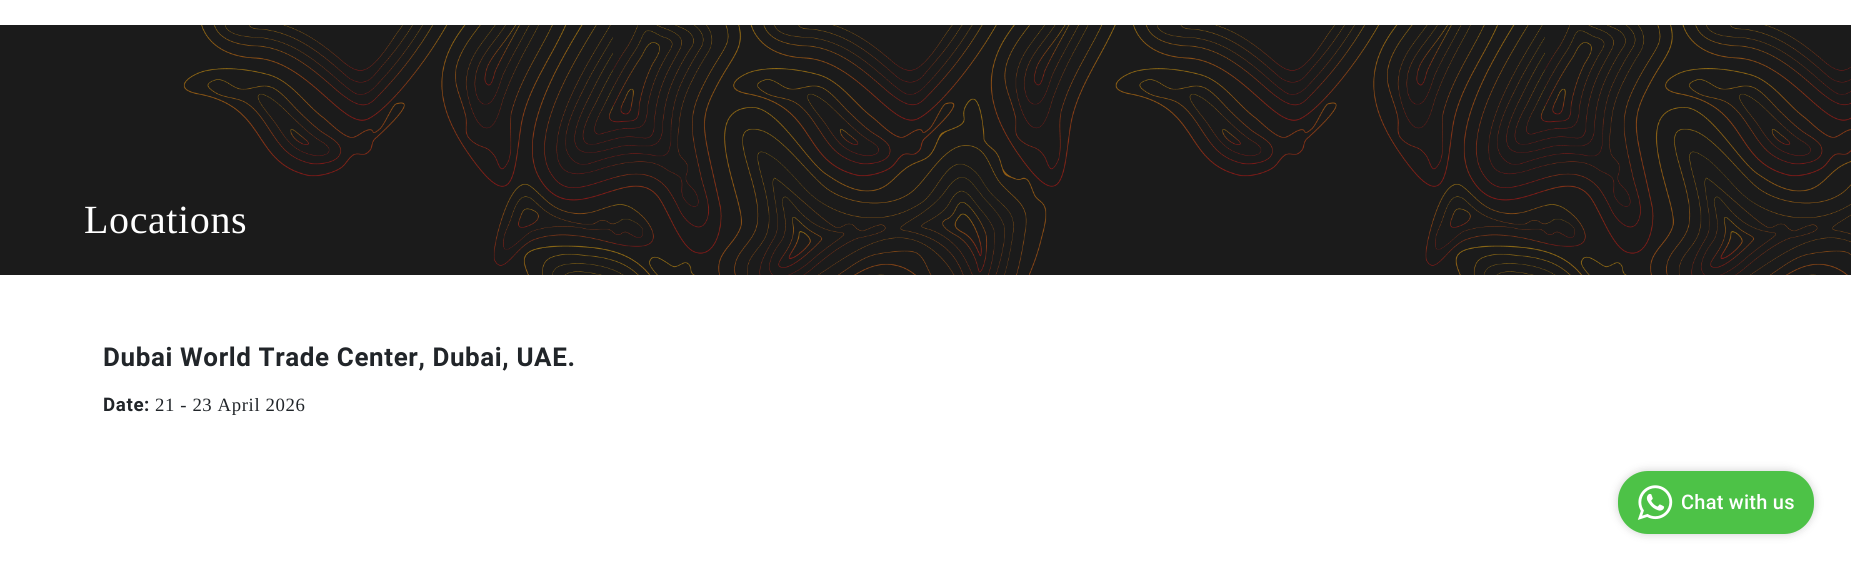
import math
import cairo

surface = cairo.ImageSurface(cairo.Format.RGB24, 1851, 571)
ctx = cairo.Context(surface)
options = cairo.FontOptions()
options.set_hint_metrics(cairo.HintMetrics.OFF)
options.set_hint_style(cairo.HintStyle.NONE)
ctx.set_font_options(options)
ctx.set_miter_limit(4)


def ink(r, g, b):
    ctx.set_source_rgb(r / 255, g / 255, b / 255)


def write_spaced(x, y, s, letter, word):
    ctx.move_to(x, y)
    for ch in s:
        ctx.show_text(ch)
        ctx.rel_move_to(letter + word * (ch == ' '), 0)


def round_path(x, y, w, h, r):
    ctx.new_sub_path()
    for i, (u, v) in enumerate([(x + w - r, y + h - r), (x + r, y + h - r), (x + r, y + r), (x + w - r, y + r)]):
        ctx.arc(u, v, r, i * math.pi / 2, (i + 1) * math.pi / 2)
    ctx.close_path()


def blur_box(x, y, w, h, r, blur, alpha):
    ctx.push_group_with_content(cairo.Content.ALPHA)
    ctx.set_operator(cairo.Operator.SOURCE)
    for i in range(15, -16, -2):
        e = blur * i / 6
        if min(w, h) + 2 * e > 0:
            ctx.set_source_rgba(0, 0, 0, alpha * math.erfc((i - 1) / 8.5) / 2)
            round_path(x - e, y - e, w + 2 * e, h + 2 * e, max(0, min(r + e + blur * .6, min(w, h) / 2 + e)))
            ctx.fill()
    ctx.mask(ctx.pop_group())


def paste(path, x, y, w, h):
    ctx.save()
    ctx.set_source_surface(cairo.ImageSurface.create_from_png(path), x, y)
    ctx.rectangle(x, y, w, h)
    ctx.fill()
    ctx.restore()


ink(255, 255, 255)
ctx.paint()
paste("pic1.png", 0, 25, 1851, 250)
ctx.select_font_face("Liberation Serif")
ctx.set_font_size(40)
ink(255, 255, 255)
write_spaced(84, 233, "Locations", 0.6, 0)
ctx.select_font_face("Roboto", cairo.FontSlant.NORMAL, cairo.FontWeight.BOLD)
ctx.set_font_size(26)
ink(33, 37, 41)
write_spaced(103, 366, "Dubai World Trade Center, Dubai, UAE.", 0.6, 0)
ctx.set_font_size(18.75)
write_spaced(103, 411, "Date:", 0.6, 0)
ctx.select_font_face("Liberation Serif")
write_spaced(155, 411, "21 - 23 April 2026", 0.6, 0)
ink(0, 0, 0)
blur_box(1618, 471, 196, 63, 30, 4.5, 0.2)
ink(77, 194, 71)
round_path(1618, 471, 196, 63, 30)
ctx.fill()
paste("pic2.png", 1637, 485, 36, 35)
ctx.select_font_face("Roboto Medium")
ctx.set_font_size(20)
ink(255, 255, 255)
write_spaced(1681, 509, "Chat with us", 0.25, 0)
surface.write_to_png("screenshot.png")
